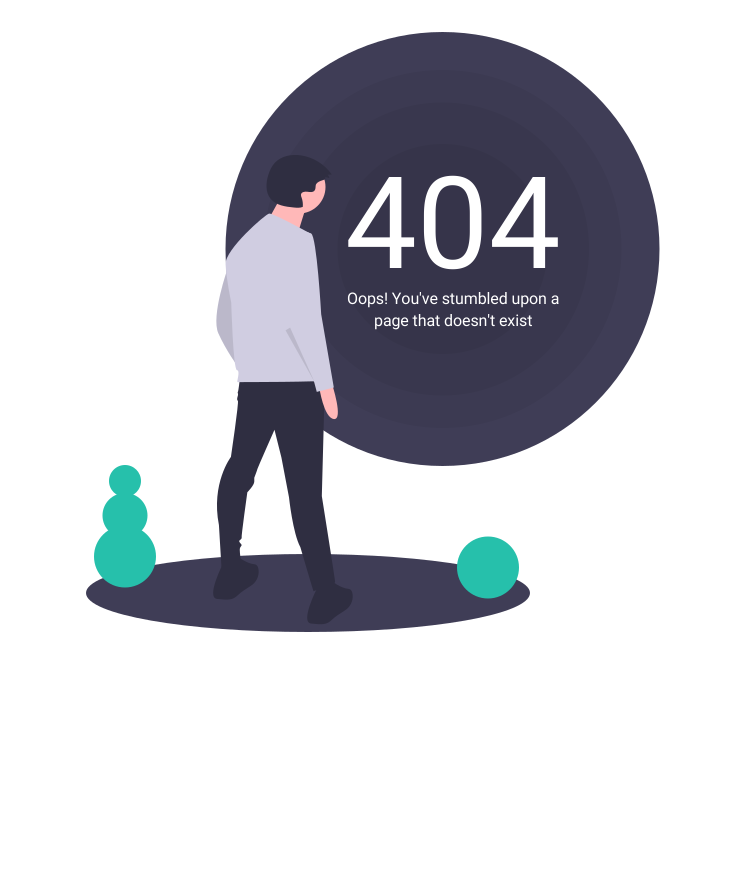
import math
import cairo

surface = cairo.ImageSurface(cairo.Format.RGB24, 746, 871)
ctx = cairo.Context(surface)
options = cairo.FontOptions()
options.set_hint_metrics(cairo.HintMetrics.OFF)
options.set_hint_style(cairo.HintStyle.NONE)
ctx.set_font_options(options)
ctx.set_miter_limit(4)


def ink(r, g, b):
    ctx.set_source_rgb(r / 255, g / 255, b / 255)


def write_spaced(x, y, s, letter, word):
    ctx.move_to(x, y)
    for ch in s:
        ctx.show_text(ch)
        ctx.rel_move_to(letter + word * (ch == ' '), 0)


def paste(path, x, y, w, h):
    ctx.save()
    ctx.set_source_surface(cairo.ImageSurface.create_from_png(path), x, y)
    ctx.rectangle(x, y, w, h)
    ctx.fill()
    ctx.restore()


ink(255, 255, 255)
ctx.paint()
paste("pic1.png", 86, 32, 574, 600)
ctx.select_font_face("Roboto")
ctx.set_font_size(128)
ink(255, 255, 255)
write_spaced(345, 268, "404", -0.1, 0)
ctx.set_font_size(16)
write_spaced(347, 304, "Oops! You've stumbled upon a", -0.1, 0)
write_spaced(374, 326, "page that doesn't exist", -0.1, 0)
surface.write_to_png("screenshot.png")
